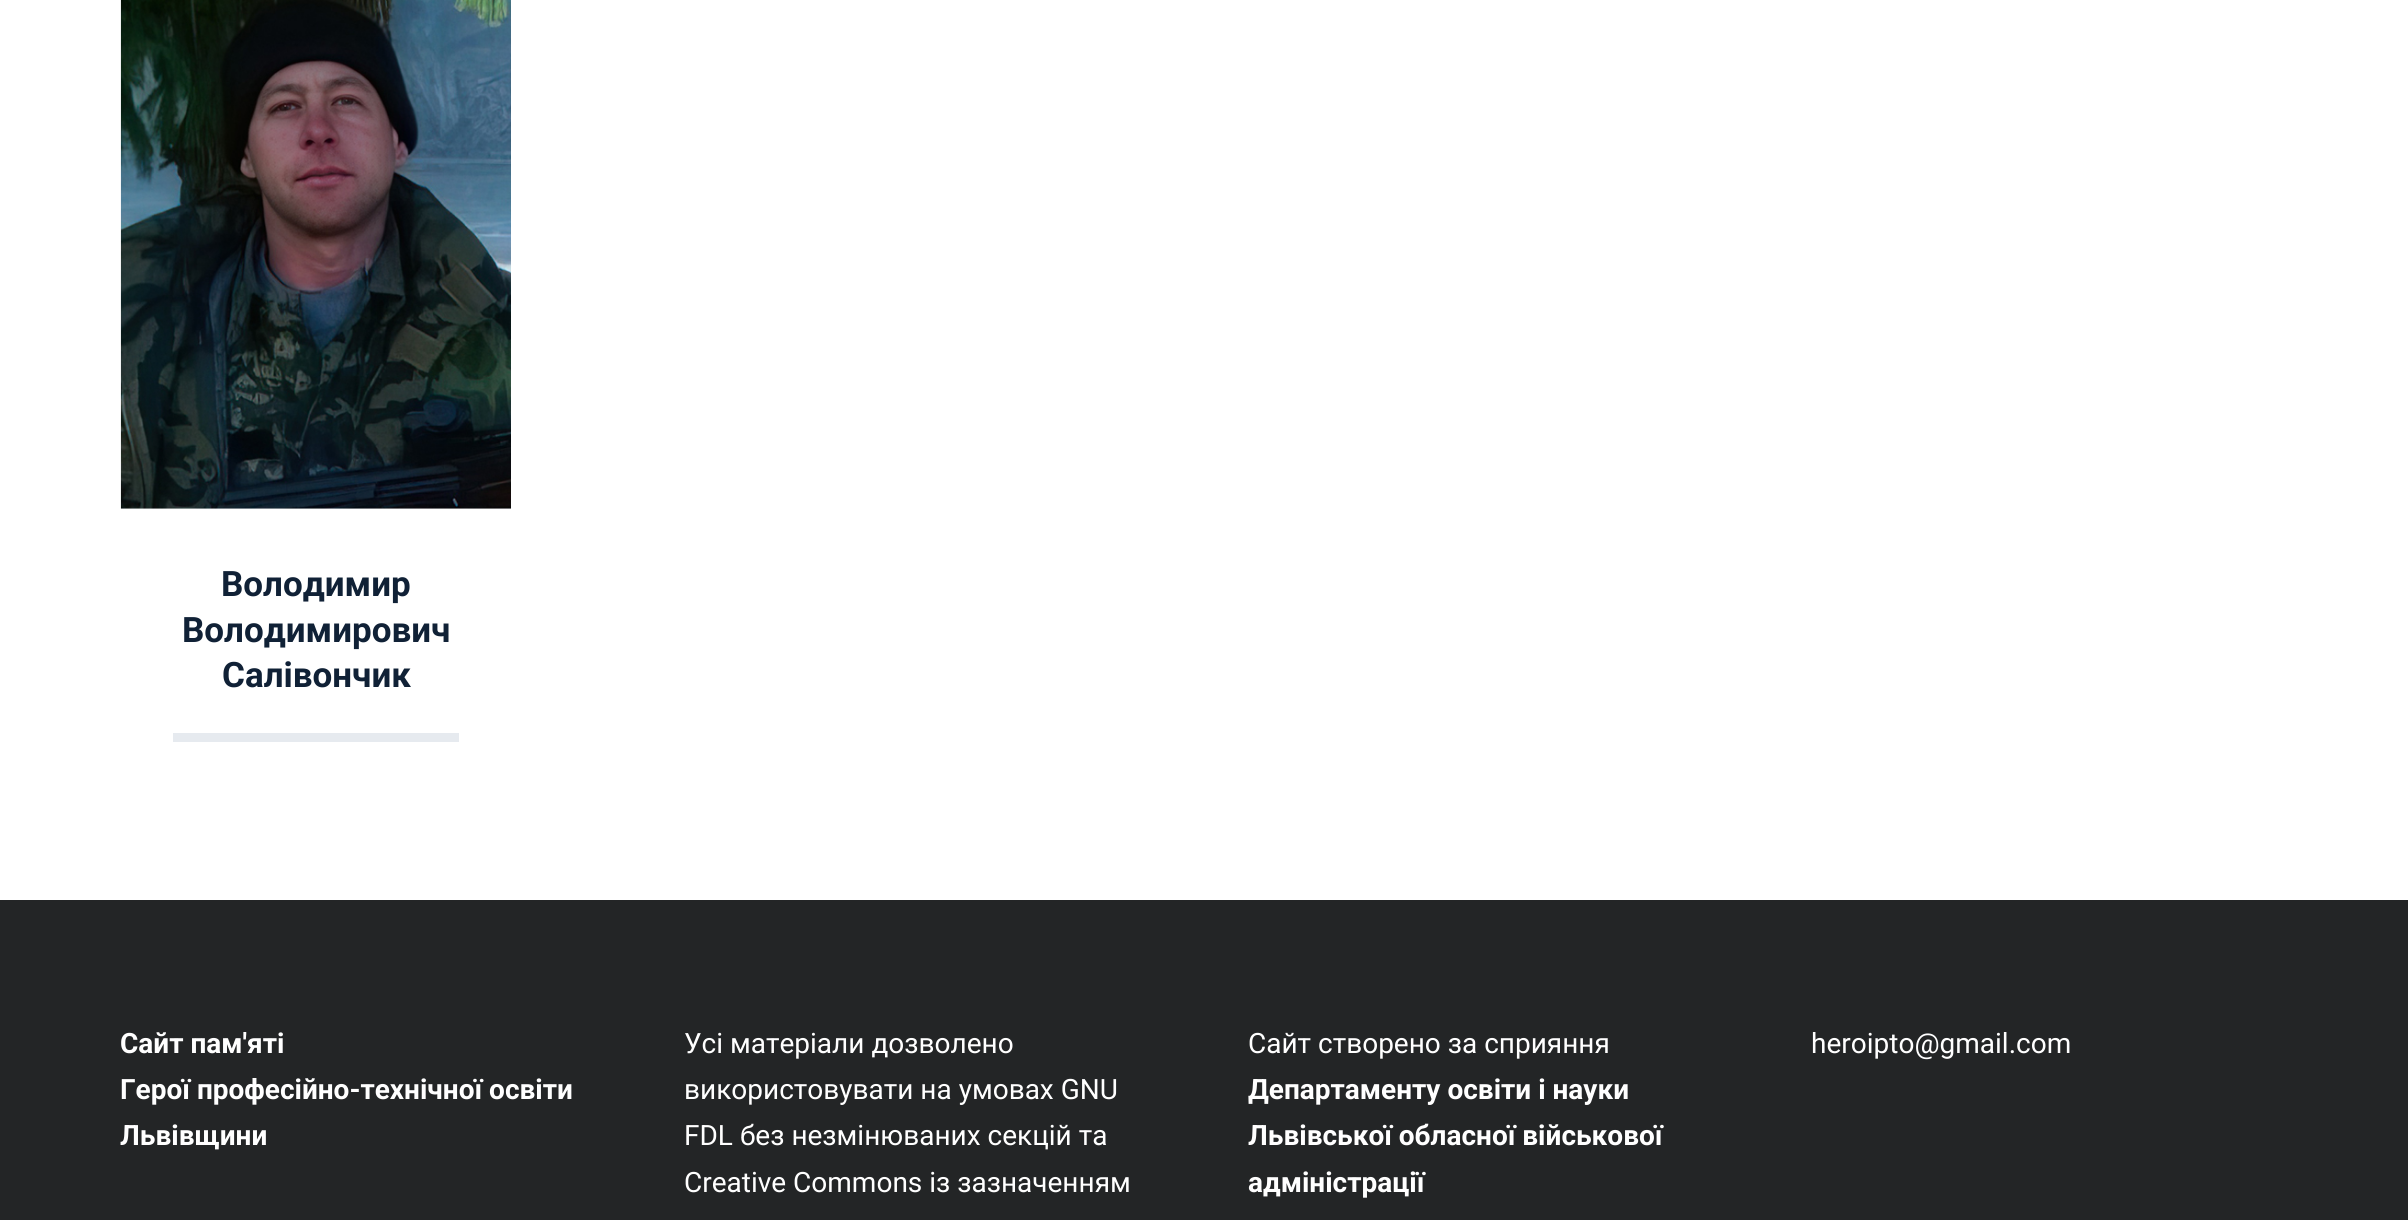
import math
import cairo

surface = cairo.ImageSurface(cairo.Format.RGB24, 2408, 1220)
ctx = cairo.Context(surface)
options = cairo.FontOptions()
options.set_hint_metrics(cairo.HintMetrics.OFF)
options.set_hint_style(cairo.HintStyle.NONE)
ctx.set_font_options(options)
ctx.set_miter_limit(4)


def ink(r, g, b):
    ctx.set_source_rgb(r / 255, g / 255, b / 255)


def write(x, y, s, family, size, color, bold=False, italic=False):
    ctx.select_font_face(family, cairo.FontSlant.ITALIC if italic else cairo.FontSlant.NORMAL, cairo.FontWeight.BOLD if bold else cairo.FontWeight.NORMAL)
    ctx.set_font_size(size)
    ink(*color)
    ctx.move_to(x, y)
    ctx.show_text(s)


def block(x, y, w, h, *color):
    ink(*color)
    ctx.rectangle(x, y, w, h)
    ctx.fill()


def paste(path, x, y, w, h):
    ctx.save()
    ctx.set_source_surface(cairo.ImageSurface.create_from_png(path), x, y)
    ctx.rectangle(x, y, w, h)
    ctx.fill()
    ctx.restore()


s1 = dict(family="Roboto", size=35, color=(16, 33, 54), bold=True)
s2 = dict(family="Roboto", size=28, color=(255, 255, 255), bold=True)
s3 = dict(family="Roboto", size=28, color=(255, 255, 255))

ink(255, 255, 255)
ctx.paint()
paste("pic1.png", 120, 0, 391, 509)
write(221, 596, "Володимир", **s1)
write(182, 642, "Володимирович", **s1)
write(222, 687, "Салівончик", **s1)
block(173, 733, 286, 9, 230, 234, 239)
block(0, 900, 2408, 320, 35, 37, 38)
write(120, 1053, "Сайт пам'яті", **s2)
write(120, 1099, "Герої професійно-технічної освіти", **s2)
write(120, 1145, "Львівщини", **s2)
write(684, 1053, "Усі матеріали дозволено", **s3)
write(684, 1099, "використовувати на умовах GNU", **s3)
write(684, 1145, "FDL без незмінюваних секцій та", **s3)
write(684, 1192, "Creative Commons із зазначенням", **s3)
write(1248, 1053, "Сайт створено за сприяння", **s3)
write(1248, 1099, "Департаменту освіти і науки", **s2)
write(1248, 1145, "Львівської обласної військової", **s2)
write(1248, 1192, "адміністрації", **s2)
write(1811, 1053, "heroipto@gmail.com", **s3)
surface.write_to_png("screenshot.png")
